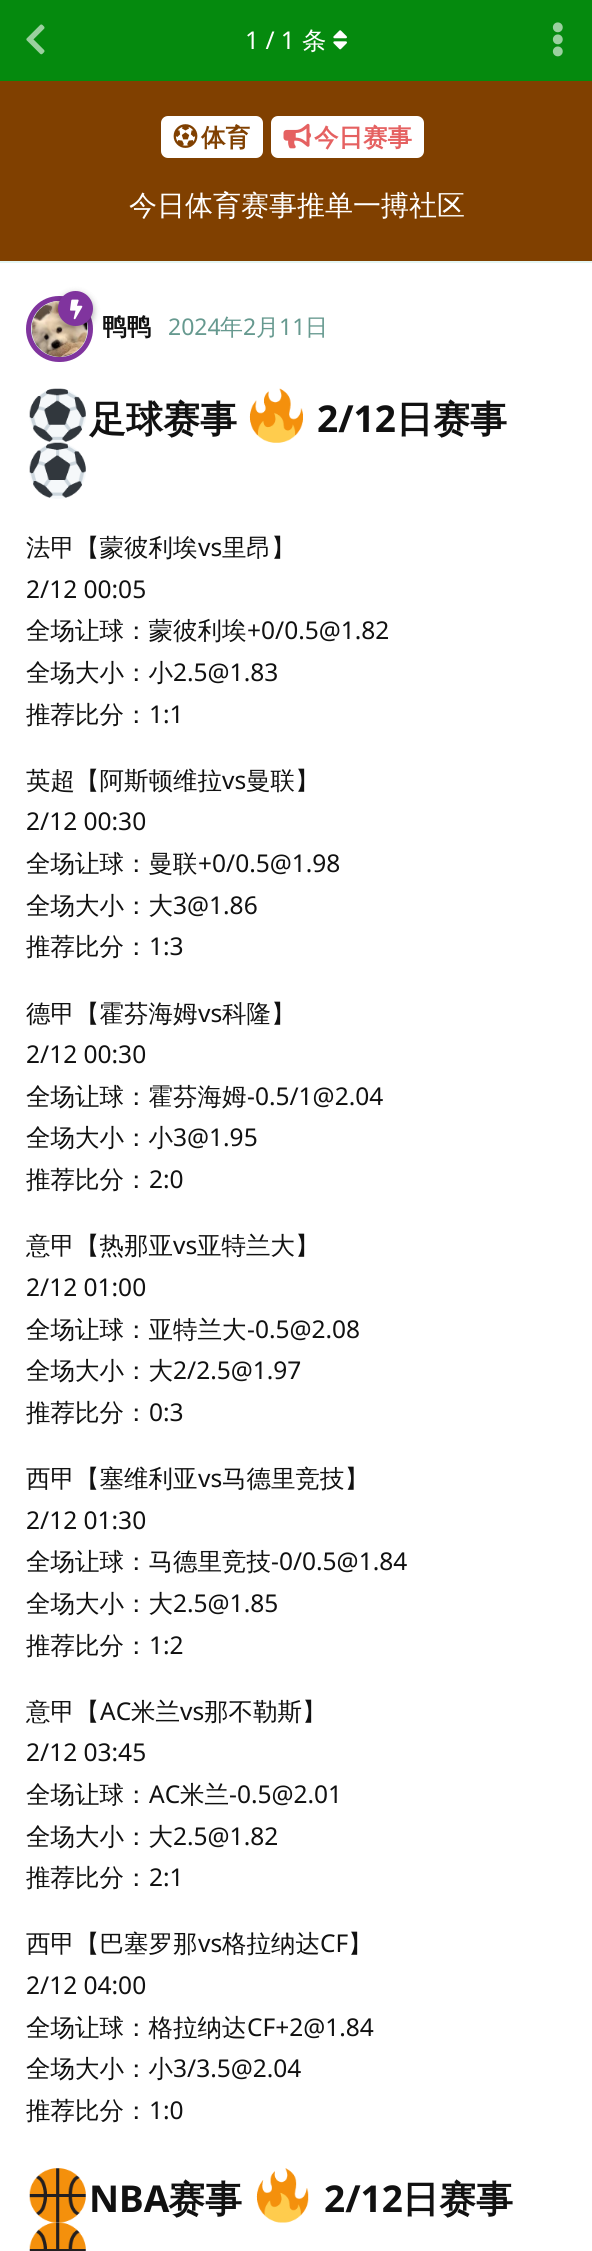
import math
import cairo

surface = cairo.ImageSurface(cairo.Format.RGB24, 592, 2251)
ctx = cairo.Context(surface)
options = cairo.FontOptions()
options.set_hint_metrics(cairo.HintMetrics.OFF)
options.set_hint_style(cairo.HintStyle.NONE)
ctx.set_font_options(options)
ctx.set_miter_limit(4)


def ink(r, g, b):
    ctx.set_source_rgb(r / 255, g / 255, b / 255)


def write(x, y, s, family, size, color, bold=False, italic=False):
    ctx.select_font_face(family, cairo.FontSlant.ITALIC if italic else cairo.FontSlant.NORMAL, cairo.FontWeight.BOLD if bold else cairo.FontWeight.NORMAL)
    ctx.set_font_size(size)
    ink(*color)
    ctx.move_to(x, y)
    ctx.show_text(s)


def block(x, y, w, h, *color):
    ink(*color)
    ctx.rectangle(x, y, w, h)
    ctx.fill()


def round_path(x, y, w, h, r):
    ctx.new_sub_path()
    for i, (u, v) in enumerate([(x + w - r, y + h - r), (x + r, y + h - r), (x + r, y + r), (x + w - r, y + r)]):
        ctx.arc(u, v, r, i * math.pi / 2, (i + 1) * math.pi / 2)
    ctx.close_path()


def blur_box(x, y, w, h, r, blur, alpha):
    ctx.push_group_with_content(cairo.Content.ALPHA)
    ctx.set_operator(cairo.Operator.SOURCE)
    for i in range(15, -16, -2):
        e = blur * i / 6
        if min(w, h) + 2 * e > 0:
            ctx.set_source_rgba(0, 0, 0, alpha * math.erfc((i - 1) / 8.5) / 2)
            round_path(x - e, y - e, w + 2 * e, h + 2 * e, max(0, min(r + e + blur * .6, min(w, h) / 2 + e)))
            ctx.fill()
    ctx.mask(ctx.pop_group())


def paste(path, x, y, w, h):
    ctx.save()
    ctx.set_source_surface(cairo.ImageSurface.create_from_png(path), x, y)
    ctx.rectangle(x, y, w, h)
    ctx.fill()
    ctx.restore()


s1 = dict(family="Noto Sans", size=24.5, color=(255, 255, 255))
s2 = dict(family="WenQuanYi Zen Hei Medium", size=24.5, color=(255, 255, 255))
s3 = dict(family="WenQuanYi Zen Hei", size=24.5, color=(17, 17, 17), bold=True)
s4 = dict(family="Noto Sans", size=23, color=(102, 153, 143))
s5 = dict(family="WenQuanYi Zen Hei Medium", size=23, color=(102, 153, 143))
s6 = dict(family="WenQuanYi Zen Hei", size=37, color=(17, 17, 17), bold=True)
s7 = dict(family="Noto Sans", size=37, color=(17, 17, 17), bold=True)
s8 = dict(family="WenQuanYi Zen Hei Medium", size=24.5, color=(17, 17, 17))
s9 = dict(family="Noto Sans", size=24.5, color=(17, 17, 17))
s10 = dict(family="WenQuanYi Zen Hei", size=24.5, color=(128, 64, 0), bold=True)
s11 = dict(family="WenQuanYi Zen Hei", size=24.5, color=(229, 97, 97), bold=True)
s12 = dict(family="WenQuanYi Zen Hei Medium", size=28, color=(255, 255, 255))

ink(255, 255, 255)
ctx.paint()
block(0, 0, 592, 81, 5, 138, 14)
paste("pic1.png", 26, 24, 19, 31)
block(0, 261, 592, 2, 228, 246, 243)
write(245, 49, "1 / 1", **s1)
write(302, 49, "条", **s2)
paste("pic2.png", 333, 30, 14, 20)
paste("pic3.png", 552, 22, 11, 35)
ink(228, 246, 243)
round_path(28.5, 298.5, 62, 61, 30.5)
ctx.fill_preserve()
ink(128, 52, 158)
ctx.set_line_width(5)
ctx.stroke()
paste("pic5.png", 31, 301, 57, 56)
ink(0, 0, 0)
blur_box(58, 294, 35, 35, 17.5, 3.5, 0.35)
ink(128, 52, 158)
ctx.arc(75.5, 308.5, 17.5, 0, 2 * math.pi)
ctx.fill()
paste("pic4.png", 70, 299, 13, 21)
write(102, 335, "鸭鸭", **s3)
write(168, 335, "2024", **s4)
write(220, 335, "年", **s5)
write(243, 335, "2", **s4)
write(256, 335, "月", **s5)
write(279, 335, "11", **s4)
write(305, 335, "日", **s5)
paste("pic6.png", 29, 388, 57, 55)
write(89, 432, "足球赛事", **s6)
paste("pic7.png", 249, 388, 54, 55)
write(317, 432, "2/12", **s7)
write(396, 432, "日赛事", **s6)
paste("pic8.png", 29, 442, 57, 57)
write(26, 556, "法甲【蒙彼利埃", **s8)
write(198, 556, "vs", **s9)
write(222, 556, "里昂】", **s8)
write(26, 598, "2/12 00:05", **s9)
write(26, 639, "全场让球：蒙彼利埃", **s8)
write(247, 639, "+0/0.5@1.82", **s9)
write(26, 681, "全场大小：小", **s8)
write(173, 681, "2.5@1.83", **s9)
write(26, 723, "推荐比分：", **s8)
write(149, 723, "1:1", **s9)
write(26, 789, "英超【阿斯顿维拉", **s8)
write(222, 789, "vs", **s9)
write(246, 789, "曼联】", **s8)
write(26, 830, "2/12 00:30", **s9)
write(26, 872, "全场让球：曼联", **s8)
write(198, 872, "+0/0.5@1.98", **s9)
write(26, 914, "全场大小：大", **s8)
write(173, 914, "3@1.86", **s9)
write(26, 955, "推荐比分：", **s8)
write(149, 955, "1:3", **s9)
write(26, 1022, "德甲【霍芬海姆", **s8)
write(198, 1022, "vs", **s9)
write(222, 1022, "科隆】", **s8)
write(26, 1063, "2/12 00:30", **s9)
write(26, 1105, "全场让球：霍芬海姆", **s8)
write(247, 1105, "-0.5/1@2.04", **s9)
write(26, 1146, "全场大小：小", **s8)
write(173, 1146, "3@1.95", **s9)
write(26, 1188, "推荐比分：", **s8)
write(149, 1188, "2:0", **s9)
write(26, 1254, "意甲【热那亚", **s8)
write(173, 1254, "vs", **s9)
write(197, 1254, "亚特兰大】", **s8)
write(26, 1296, "2/12 01:00", **s9)
write(26, 1338, "全场让球：亚特兰大", **s8)
write(247, 1338, "-0.5@2.08", **s9)
write(26, 1379, "全场大小：大", **s8)
write(173, 1379, "2/2.5@1.97", **s9)
write(26, 1421, "推荐比分：", **s8)
write(149, 1421, "0:3", **s9)
write(26, 1487, "西甲【塞维利亚", **s8)
write(198, 1487, "vs", **s9)
write(222, 1487, "马德里竞技】", **s8)
write(26, 1529, "2/12 01:30", **s9)
write(26, 1570, "全场让球：马德里竞技", **s8)
write(271, 1570, "-0/0.5@1.84", **s9)
write(26, 1612, "全场大小：大", **s8)
write(173, 1612, "2.5@1.85", **s9)
write(26, 1654, "推荐比分：", **s8)
write(149, 1654, "1:2", **s9)
write(26, 1720, "意甲【", **s8)
write(100, 1720, "AC", **s9)
write(131, 1720, "米兰", **s8)
write(180, 1720, "vs", **s9)
write(204, 1720, "那不勒斯】", **s8)
write(26, 1761, "2/12 03:45", **s9)
write(26, 1803, "全场让球：", **s8)
write(149, 1803, "AC", **s9)
write(180, 1803, "米兰", **s8)
write(229, 1803, "-0.5@2.01", **s9)
write(26, 1845, "全场大小：大", **s8)
write(173, 1845, "2.5@1.82", **s9)
write(26, 1886, "推荐比分：", **s8)
write(149, 1886, "2:1", **s9)
write(26, 1952, "西甲【巴塞罗那", **s8)
write(198, 1952, "vs", **s9)
write(222, 1952, "格拉纳达", **s8)
write(320, 1952, "CF", **s9)
write(348, 1952, "】", **s8)
write(26, 1994, "2/12 04:00", **s9)
write(26, 2036, "全场让球：格拉纳达", **s8)
write(247, 2036, "CF+2@1.84", **s9)
write(26, 2077, "全场大小：小", **s8)
write(173, 2077, "3/3.5@2.04", **s9)
write(26, 2119, "推荐比分：", **s8)
write(149, 2119, "1:0", **s9)
paste("pic9.png", 29, 2168, 57, 55)
write(89, 2212, "NBA", **s7)
write(168, 2212, "赛事", **s6)
paste("pic10.png", 256, 2168, 53, 55)
write(324, 2212, "2/12", **s7)
write(402, 2212, "日赛事", **s6)
paste("pic11.png", 29, 2222, 57, 29)
block(0, 81, 592, 180, 128, 64, 0)
ink(255, 255, 255)
round_path(161, 116, 102, 42, 7)
ctx.fill()
paste("pic12.png", 173, 124, 25, 24)
write(201, 146, "体育", **s10)
ink(255, 255, 255)
round_path(271, 116, 153, 42, 7)
ctx.fill()
paste("pic13.png", 283, 123, 29, 26)
write(314, 146, "今日赛事", **s11)
write(129, 215, "今日体育赛事推单一搏社区", **s12)
surface.write_to_png("screenshot.png")
